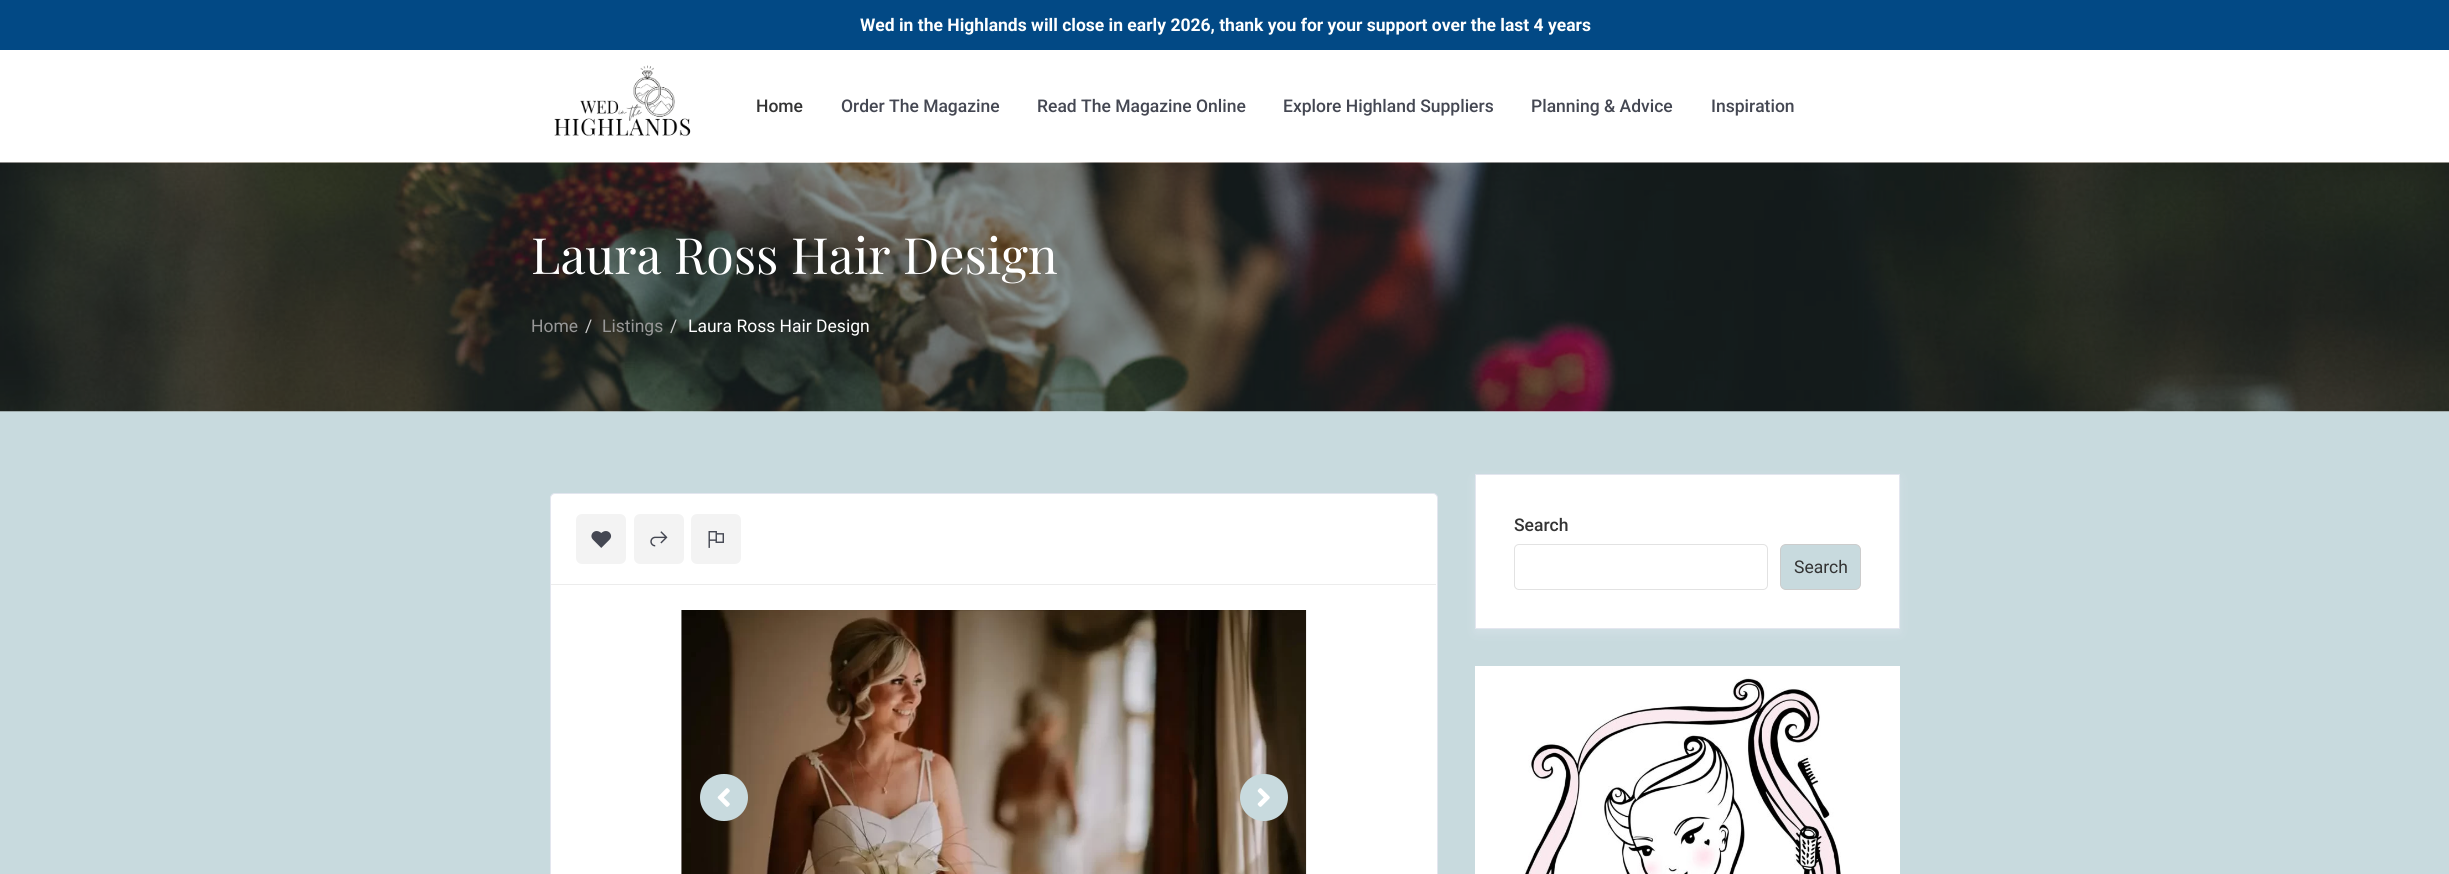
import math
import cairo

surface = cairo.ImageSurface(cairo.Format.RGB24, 2449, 874)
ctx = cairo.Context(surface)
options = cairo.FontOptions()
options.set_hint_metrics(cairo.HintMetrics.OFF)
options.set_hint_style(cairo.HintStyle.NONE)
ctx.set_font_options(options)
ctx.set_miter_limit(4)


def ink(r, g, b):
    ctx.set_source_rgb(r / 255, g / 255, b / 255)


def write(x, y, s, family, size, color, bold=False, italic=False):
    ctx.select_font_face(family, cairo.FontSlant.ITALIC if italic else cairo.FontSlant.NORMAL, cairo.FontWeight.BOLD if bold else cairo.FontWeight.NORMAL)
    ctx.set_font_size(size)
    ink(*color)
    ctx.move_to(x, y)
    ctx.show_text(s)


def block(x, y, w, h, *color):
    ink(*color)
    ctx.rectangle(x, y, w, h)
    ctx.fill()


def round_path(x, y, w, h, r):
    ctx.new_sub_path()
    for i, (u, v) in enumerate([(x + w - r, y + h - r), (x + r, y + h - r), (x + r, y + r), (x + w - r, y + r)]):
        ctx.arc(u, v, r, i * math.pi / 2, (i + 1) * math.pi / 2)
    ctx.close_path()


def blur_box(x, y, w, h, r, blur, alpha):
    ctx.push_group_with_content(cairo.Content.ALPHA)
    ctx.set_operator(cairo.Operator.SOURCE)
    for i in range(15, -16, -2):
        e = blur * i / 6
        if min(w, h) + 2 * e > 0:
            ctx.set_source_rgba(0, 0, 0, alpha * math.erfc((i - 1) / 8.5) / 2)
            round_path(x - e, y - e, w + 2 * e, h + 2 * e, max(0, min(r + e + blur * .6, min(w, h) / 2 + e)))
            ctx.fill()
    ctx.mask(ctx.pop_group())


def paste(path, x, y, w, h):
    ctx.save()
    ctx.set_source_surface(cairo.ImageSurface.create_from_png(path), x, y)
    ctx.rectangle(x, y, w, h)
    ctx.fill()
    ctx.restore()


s1 = dict(family="Roboto", size=17.5, color=(255, 255, 255), bold=True)
s2 = dict(family="Roboto Medium", size=17.5, color=(51, 51, 51))
s3 = dict(family="Roboto Medium", size=17.5, color=(68, 71, 82))
s4 = dict(family="Playfair Display", size=50, color=(255, 255, 255))
s5 = dict(family="Roboto", size=17.5, color=(152, 152, 152))
s6 = dict(family="Roboto", size=17.5, color=(204, 204, 204))
s7 = dict(family="Roboto", size=17.5, color=(255, 255, 255))
s8 = dict(family="Roboto", size=17.5, color=(51, 51, 51))

ink(200, 218, 222)
ctx.paint()
block(0, 0, 2449, 50, 2, 73, 133)
write(860, 31, "Wed in the Highlands will close in early 2026, thank you for your support over the last 4 years", **s1)
block(0, 50, 2449, 113, 255, 255, 255)
paste("pic1.png", 554, 65, 137, 72)
write(756, 112, "Home", **s2)
write(841, 112, "Order The Magazine", **s3)
write(1037, 112, "Read The Magazine Online", **s3)
write(1283, 112, "Explore Highland Suppliers", **s3)
write(1531, 112, "Planning & Advice", **s3)
write(1711, 112, "Inspiration", **s3)
paste("pic2.png", 0, 162, 2449, 250)
write(531, 274, "Laura Ross Hair Design", **s4)
write(531, 332, "Home", **s5)
write(585, 332, "/", **s6)
write(602, 332, "Listings", **s5)
write(670, 332, "/", **s6)
write(688, 332, "Laura Ross Hair Design", **s7)
round_path(550.5, 493.5, 887, 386, 4.5)
ctx.fill_preserve()
ink(227, 230, 239)
ctx.set_line_width(1)
ctx.stroke()
block(551, 584, 885, 1, 236, 236, 236)
ink(243, 243, 243)
round_path(576, 514, 50, 50, 6)
ctx.fill()
paste("pic3.png", 591, 531, 21, 17)
round_path(634, 514, 50, 50, 6)
ctx.fill()
paste("pic4.png", 650, 531, 18, 16)
round_path(691, 514, 50, 50, 6)
ctx.fill()
paste("pic5.png", 708, 531, 16, 17)
paste("pic6.png", 681, 610, 626, 264)
ink(200, 218, 222)
round_path(700, 774, 48, 47, 23.5)
ctx.fill()
paste("pic7.png", 717, 788, 13, 19)
round_path(1240, 774, 48, 47, 23.5)
ctx.fill()
paste("pic8.png", 1257, 788, 13, 19)
ink(244, 242, 255)
blur_box(1475, 478, 425, 155, 0, 5, 0.24)
ink(255, 255, 255)
ctx.rectangle(1475.5, 474.5, 424, 154)
ctx.fill_preserve()
ink(227, 230, 239)
ctx.stroke()
write(1514, 531, "Search", **s2)
round_path(1514.5, 544.5, 253, 45, 4.5)
ink(226, 226, 226)
ctx.stroke()
ink(200, 218, 222)
round_path(1780.5, 544.5, 80, 45, 5.5)
ctx.fill_preserve()
ink(204, 204, 204)
ctx.stroke()
write(1794, 573, "Search", **s8)
block(1475, 666, 425, 208, 255, 255, 255)
paste("pic9.png", 1524, 677, 317, 197)
surface.write_to_png("screenshot.png")
